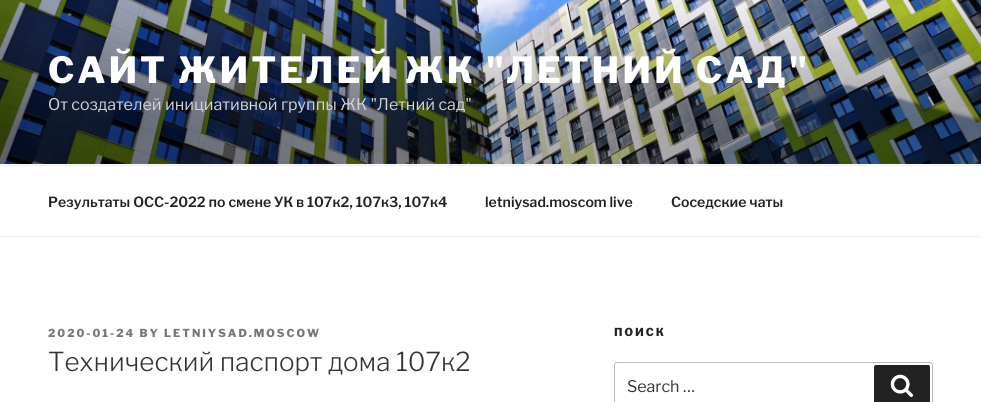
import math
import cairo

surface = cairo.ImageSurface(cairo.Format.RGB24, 981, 402)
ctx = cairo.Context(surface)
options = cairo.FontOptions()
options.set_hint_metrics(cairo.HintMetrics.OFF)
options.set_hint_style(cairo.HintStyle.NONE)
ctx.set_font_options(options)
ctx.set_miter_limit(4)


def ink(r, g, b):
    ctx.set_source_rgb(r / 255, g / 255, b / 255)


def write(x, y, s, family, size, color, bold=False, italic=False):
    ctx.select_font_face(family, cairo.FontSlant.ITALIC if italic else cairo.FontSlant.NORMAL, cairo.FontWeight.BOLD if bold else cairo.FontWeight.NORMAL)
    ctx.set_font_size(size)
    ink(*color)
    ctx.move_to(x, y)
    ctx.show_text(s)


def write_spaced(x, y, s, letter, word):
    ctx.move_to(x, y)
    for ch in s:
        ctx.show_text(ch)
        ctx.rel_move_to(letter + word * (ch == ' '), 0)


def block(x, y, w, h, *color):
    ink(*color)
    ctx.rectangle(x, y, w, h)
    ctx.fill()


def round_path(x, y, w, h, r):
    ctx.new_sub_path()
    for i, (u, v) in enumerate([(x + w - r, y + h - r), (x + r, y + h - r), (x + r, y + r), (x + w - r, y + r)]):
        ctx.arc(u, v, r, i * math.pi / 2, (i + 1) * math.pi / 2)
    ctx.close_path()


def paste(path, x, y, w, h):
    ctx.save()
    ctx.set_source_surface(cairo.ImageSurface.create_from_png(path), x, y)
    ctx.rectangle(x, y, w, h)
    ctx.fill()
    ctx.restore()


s1 = dict(family="Libre Franklin", size=16, color=(211, 213, 216))
s2 = dict(family="Libre Franklin SemiBold", size=14, color=(34, 34, 34))
s3 = dict(family="Libre Franklin Light", size=26, color=(51, 51, 51))
s4 = dict(family="Libre Franklin", size=16, color=(51, 51, 51))

ink(255, 255, 255)
ctx.paint()
block(0, 164, 981, 1, 250, 250, 250)
paste("pic1.png", 0, 0, 981, 164)
ctx.select_font_face("Libre Franklin ExtraBold")
ctx.set_font_size(36)
ink(255, 255, 255)
write_spaced(48, 83, "САЙТ ЖИТЕЛЕЙ ЖК \"ЛЕТНИЙ САД\"", 2.9, 0)
write(48, 110, "От создателей инициативной группы ЖК \"Летний сад\"", **s1)
block(0, 165, 981, 1, 238, 238, 238)
block(0, 236, 981, 1, 238, 238, 238)
write(48, 207, "Результаты ОСС-2022 по смене УК в 107к2, 107к3, 107к4", **s2)
write(485, 207, "letniysad.moscom live", **s2)
write(671, 207, "Соседские чаты", **s2)
ctx.select_font_face("Libre Franklin ExtraBold")
ctx.set_font_size(11)
ink(118, 118, 118)
write_spaced(48, 337, "2020-01-24 BY LETNIYSAD.MOSCOW", 2, 0)
write(48, 371, "Технический паспорт дома 107к2", **s3)
ctx.select_font_face("Libre Franklin ExtraBold")
ctx.set_font_size(11)
ink(34, 34, 34)
write_spaced(614, 336, "ПОИСК", 2, 0)
round_path(614.5, 362.5, 318, 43, 2.5)
ink(187, 187, 187)
ctx.set_line_width(1)
ctx.stroke()
write(627, 392, "Search …", **s4)
ink(34, 34, 34)
round_path(874, 365, 56, 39, 2)
ctx.fill()
paste("pic2.png", 890, 374, 23, 23)
surface.write_to_png("screenshot.png")
